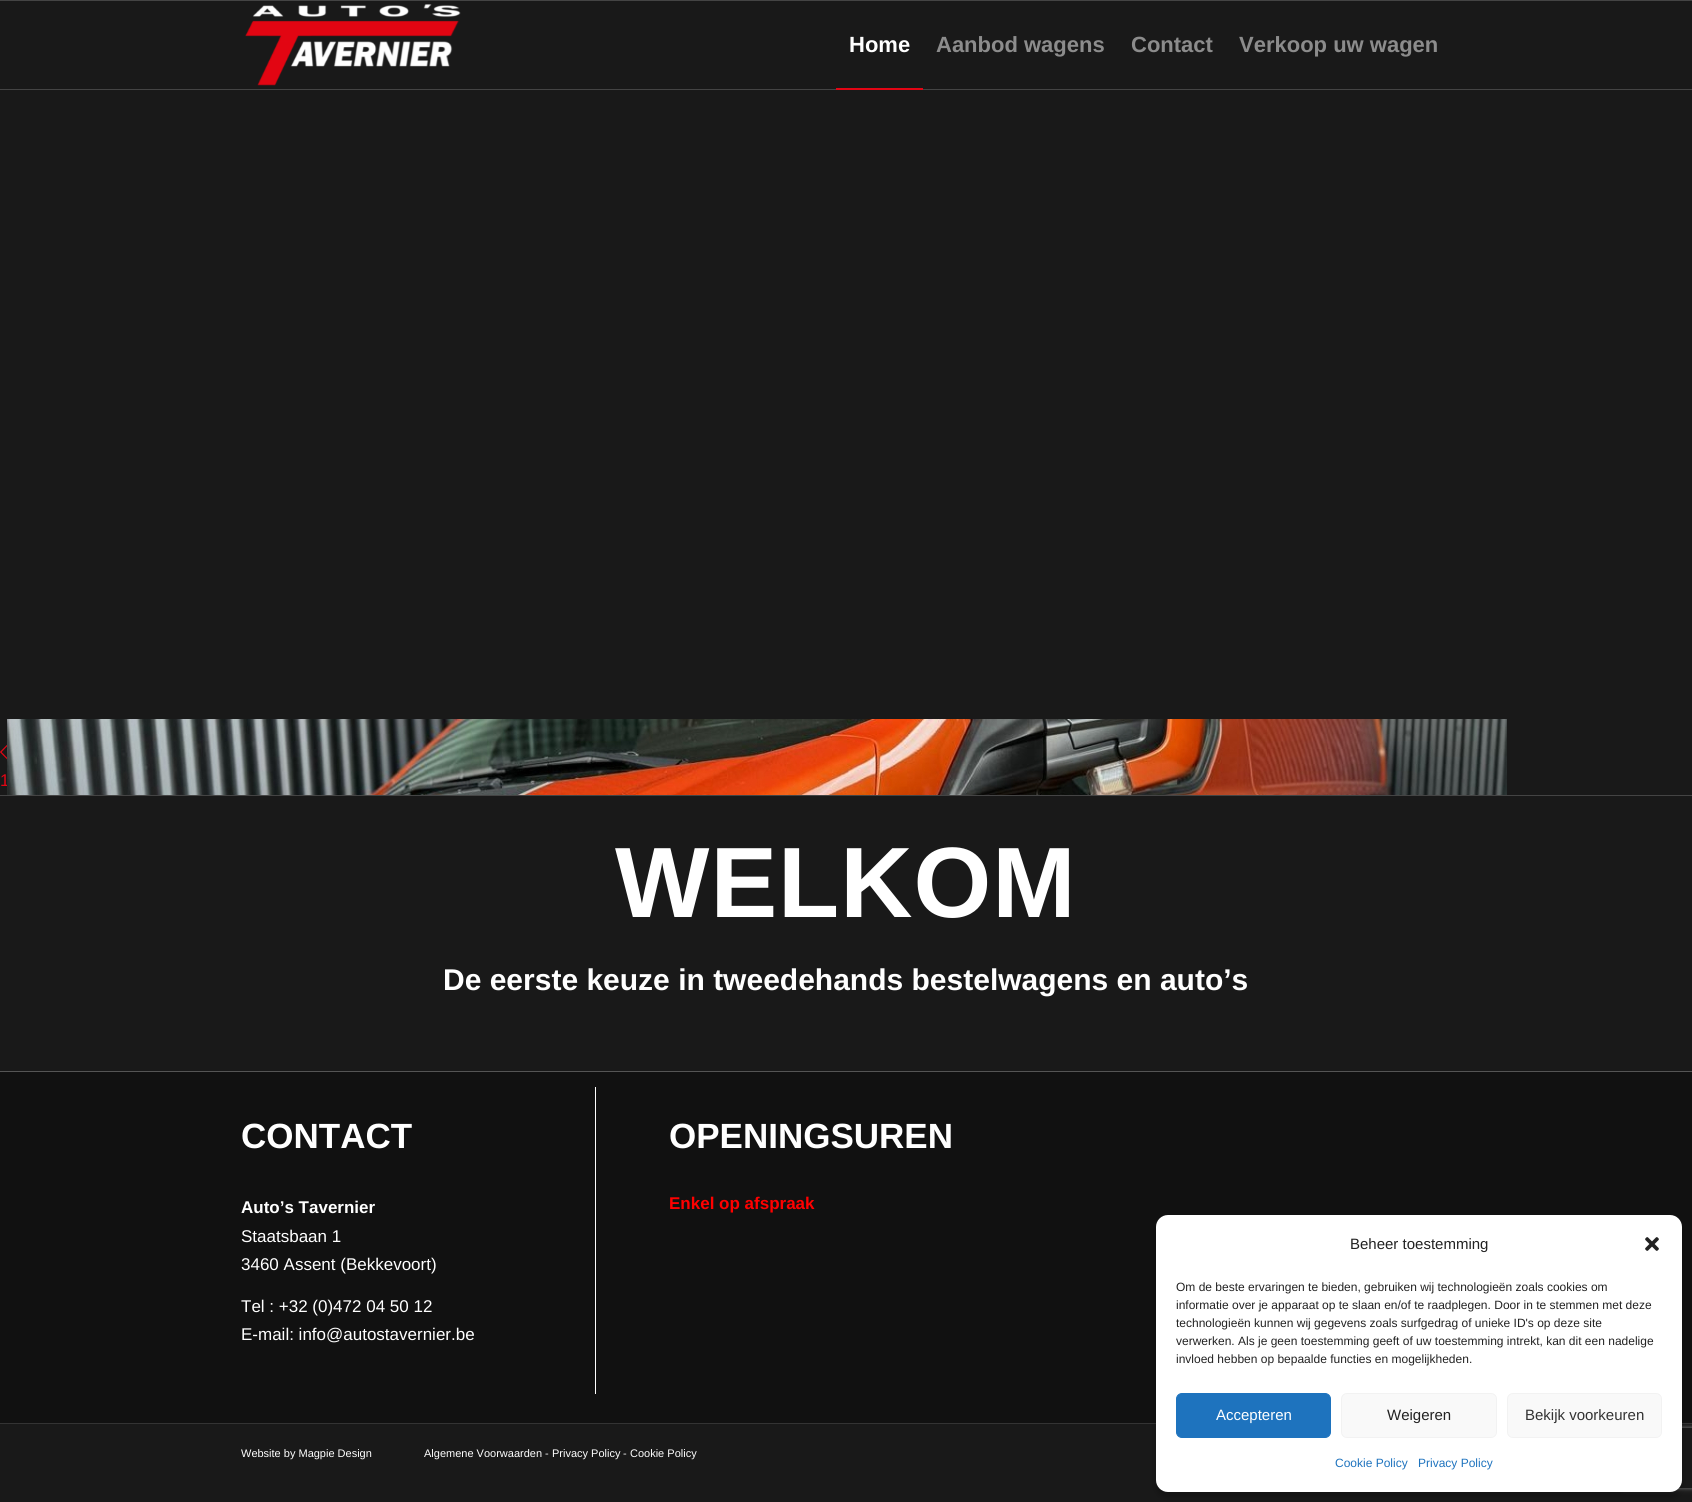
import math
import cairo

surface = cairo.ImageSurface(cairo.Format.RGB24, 1692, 1502)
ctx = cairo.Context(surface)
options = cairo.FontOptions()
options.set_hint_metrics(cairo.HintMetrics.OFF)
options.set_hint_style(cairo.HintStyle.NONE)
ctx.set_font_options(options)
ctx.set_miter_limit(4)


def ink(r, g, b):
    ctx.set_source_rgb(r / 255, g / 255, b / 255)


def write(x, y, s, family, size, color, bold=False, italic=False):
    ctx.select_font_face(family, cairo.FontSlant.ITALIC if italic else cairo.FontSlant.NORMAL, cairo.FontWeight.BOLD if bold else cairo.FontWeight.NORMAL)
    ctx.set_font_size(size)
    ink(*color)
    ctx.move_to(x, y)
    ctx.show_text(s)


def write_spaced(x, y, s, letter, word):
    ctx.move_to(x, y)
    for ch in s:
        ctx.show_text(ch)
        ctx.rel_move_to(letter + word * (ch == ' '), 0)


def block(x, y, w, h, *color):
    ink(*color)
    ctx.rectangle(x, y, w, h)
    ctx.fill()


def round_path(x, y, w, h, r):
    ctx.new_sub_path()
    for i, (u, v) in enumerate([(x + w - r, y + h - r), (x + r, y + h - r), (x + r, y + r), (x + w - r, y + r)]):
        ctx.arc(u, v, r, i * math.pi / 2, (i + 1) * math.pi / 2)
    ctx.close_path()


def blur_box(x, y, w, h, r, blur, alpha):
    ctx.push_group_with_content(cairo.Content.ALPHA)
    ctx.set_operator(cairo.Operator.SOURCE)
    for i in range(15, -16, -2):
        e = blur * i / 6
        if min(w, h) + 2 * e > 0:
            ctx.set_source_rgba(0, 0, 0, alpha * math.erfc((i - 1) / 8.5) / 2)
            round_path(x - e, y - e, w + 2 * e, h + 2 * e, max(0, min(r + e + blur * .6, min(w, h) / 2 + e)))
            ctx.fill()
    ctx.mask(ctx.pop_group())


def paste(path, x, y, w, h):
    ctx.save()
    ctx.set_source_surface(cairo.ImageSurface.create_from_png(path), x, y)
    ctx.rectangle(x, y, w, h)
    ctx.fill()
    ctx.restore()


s1 = dict(family="Liberation Sans", size=22, color=(255, 255, 255), bold=True)
s2 = dict(family="Liberation Sans", size=22, color=(140, 140, 140), bold=True)
s3 = dict(family="Liberation Sans", size=17, color=(226, 5, 20))
s4 = dict(family="Liberation Sans", size=30, color=(255, 255, 255), bold=True)
s5 = dict(family="Liberation Sans", size=35, color=(255, 255, 255), bold=True)
s6 = dict(family="Liberation Sans", size=17, color=(255, 255, 255), bold=True)
s7 = dict(family="Liberation Sans", size=17, color=(255, 255, 255))
s8 = dict(family="Liberation Sans", size=17, color=(255, 0, 0), bold=True)
s9 = dict(family="Liberation Sans", size=11, color=(255, 255, 255))
s10 = dict(family="Liberation Sans", size=11, color=(238, 238, 238))
s11 = dict(family="Liberation Sans", size=15, color=(34, 34, 34))
s12 = dict(family="Liberation Sans", size=12, color=(34, 34, 34))
s13 = dict(family="Liberation Sans", size=15, color=(255, 255, 255))
s14 = dict(family="Liberation Sans", size=15, color=(51, 51, 51))
s15 = dict(family="Liberation Sans", size=12, color=(30, 115, 190))

ink(25, 25, 25)
ctx.paint()
block(0, 0, 1692, 1, 68, 68, 68)
block(0, 89, 1692, 1, 68, 68, 68)
paste("pic1.png", 245, 4, 216, 82)
write(849, 52, "Home", **s1)
block(836, 88, 87, 2, 226, 5, 20)
write(936, 52, "Aanbod wagens", **s2)
write(1131, 52, "Contact", **s2)
write(1239, 52, "Verkoop uw wagen", **s2)
paste("pic2.png", 0, 745, 7, 15)
write(0, 786, "1", **s3)
paste("pic3.png", 7, 719, 1500, 76)
block(0, 795, 1692, 1, 68, 68, 68)
ctx.select_font_face("Liberation Sans", cairo.FontSlant.NORMAL, cairo.FontWeight.BOLD)
ctx.set_font_size(100)
ink(255, 255, 255)
write_spaced(615, 917, "WELKOM", 1, 0)
write(443, 990, "De eerste keuze in tweedehands bestelwagens en auto’s", **s4)
block(0, 1072, 1692, 351, 17, 17, 17)
block(0, 1071, 1692, 1, 85, 85, 85)
block(595, 1087, 1, 307, 255, 255, 255)
write(241, 1148, "CONTACT", **s5)
write(241, 1213, "Auto’s Tavernier", **s6)
write(241, 1242, "Staatsbaan 1", **s7)
write(241, 1270, "3460 Assent (Bekkevoort)", **s7)
write(241, 1312, "Tel : +32 (0)472 04 50 12", **s7)
write(241, 1340, "E-mail: info@autostavernier.be", **s7)
write(669, 1148, "OPENINGSUREN", **s5)
write(669, 1209, "Enkel op afspraak", **s8)
block(0, 1423, 1692, 1, 51, 51, 51)
write(241, 1457, "Website by Magpie Design", **s9)
write(424, 1457, "Algemene Voorwaarden", **s9)
write(545, 1457, "-", **s10)
write(552, 1457, "Privacy Policy", **s9)
write(623, 1457, "-", **s10)
write(630, 1457, "Cookie Policy", **s9)
ink(0, 0, 0)
blur_box(1156, 1221, 526, 277, 12, 3, 0.23)
ctx.save()
ctx.set_fill_rule(cairo.FillRule.EVEN_ODD)
ctx.new_path()
ctx.move_to(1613, 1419)
ctx.line_to(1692, 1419)
ctx.line_to(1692, 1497)
ctx.line_to(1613, 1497)
ctx.close_path()
ctx.move_to(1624, 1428)
ctx.line_to(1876, 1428)
ctx.curve_to(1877, 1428, 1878, 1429, 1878, 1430)
ctx.line_to(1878, 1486)
ctx.curve_to(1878, 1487, 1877, 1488, 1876, 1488)
ctx.line_to(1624, 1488)
ctx.curve_to(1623, 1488, 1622, 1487, 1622, 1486)
ctx.line_to(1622, 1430)
ctx.curve_to(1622, 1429, 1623, 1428, 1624, 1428)
ctx.close_path()
ctx.clip()
ink(128, 128, 128)
blur_box(1622, 1428, 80, 60, 2, 2.5, 1)
ctx.restore()
ink(255, 255, 255)
round_path(1156, 1215, 526, 277, 12)
ctx.fill()
write(1350, 1249, "Beheer toestemming", **s11)
paste("pic4.png", 1645, 1237, 14, 14)
write(1176, 1291, "Om de beste ervaringen te bieden, gebruiken wij technologieën zoals cookies om", **s12)
write(1176, 1309, "informatie over je apparaat op te slaan en/of te raadplegen. Door in te stemmen met deze", **s12)
write(1176, 1327, "technologieën kunnen wij gegevens zoals surfgedrag of unieke ID's op deze site", **s12)
write(1176, 1345, "verwerken. Als je geen toestemming geeft of uw toestemming intrekt, kan dit een nadelige", **s12)
write(1176, 1363, "invloed hebben op bepaalde functies en mogelijkheden.", **s12)
ink(30, 115, 190)
round_path(1176.5, 1393.5, 154, 44, 5.5)
ctx.fill_preserve()
ctx.set_line_width(1)
ctx.stroke()
write(1216, 1420, "Accepteren", **s13)
ink(249, 249, 249)
round_path(1341.5, 1393.5, 155, 44, 5.5)
ctx.fill_preserve()
ink(242, 242, 242)
ctx.stroke()
write(1387, 1420, "Weigeren", **s11)
ink(249, 249, 249)
round_path(1507.5, 1393.5, 154, 44, 5.5)
ctx.fill_preserve()
ink(242, 242, 242)
ctx.stroke()
write(1525, 1420, "Bekijk voorkeuren", **s14)
write(1335, 1467, "Cookie Policy", **s15)
write(1418, 1467, "Privacy Policy", **s15)
surface.write_to_png("screenshot.png")
